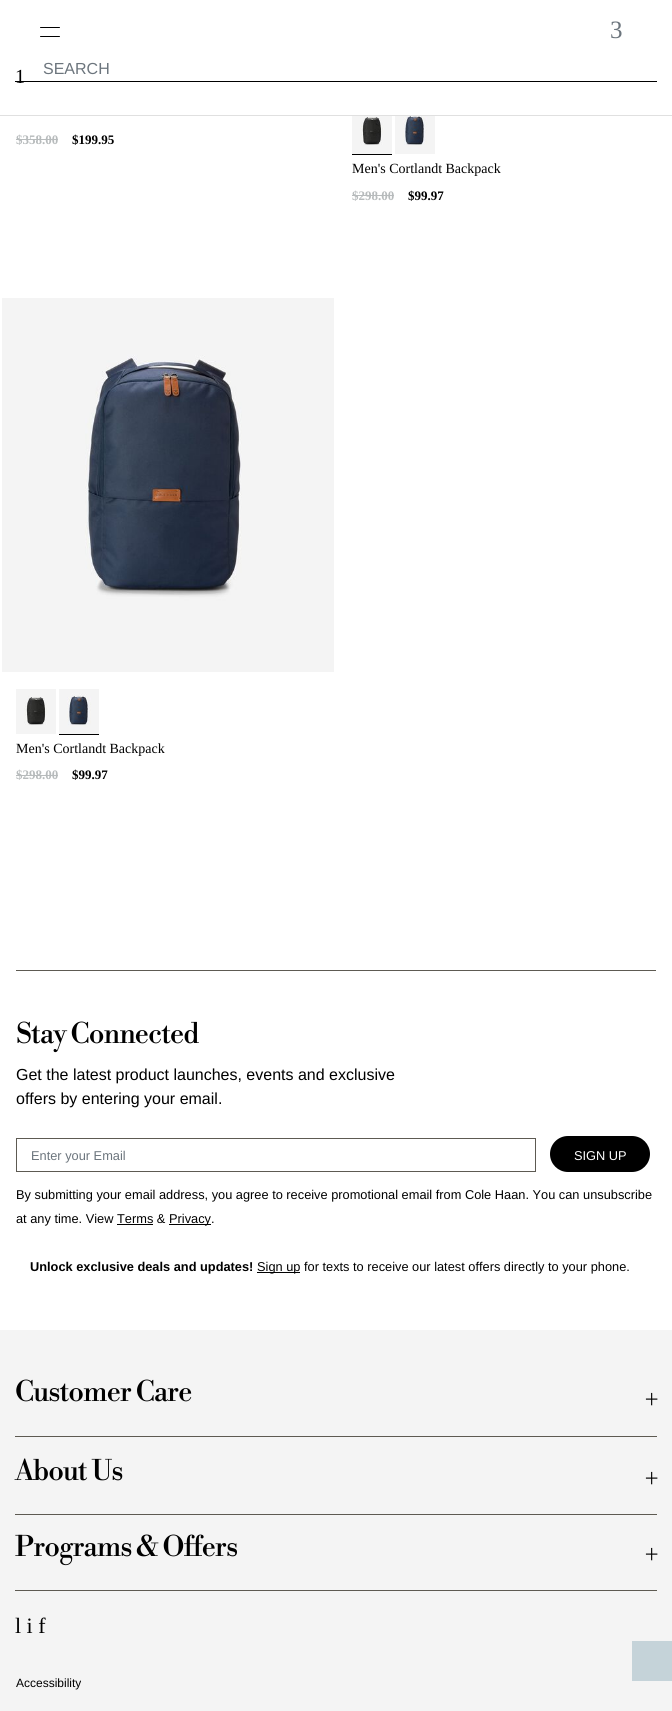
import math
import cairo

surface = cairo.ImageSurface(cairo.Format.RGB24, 672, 1711)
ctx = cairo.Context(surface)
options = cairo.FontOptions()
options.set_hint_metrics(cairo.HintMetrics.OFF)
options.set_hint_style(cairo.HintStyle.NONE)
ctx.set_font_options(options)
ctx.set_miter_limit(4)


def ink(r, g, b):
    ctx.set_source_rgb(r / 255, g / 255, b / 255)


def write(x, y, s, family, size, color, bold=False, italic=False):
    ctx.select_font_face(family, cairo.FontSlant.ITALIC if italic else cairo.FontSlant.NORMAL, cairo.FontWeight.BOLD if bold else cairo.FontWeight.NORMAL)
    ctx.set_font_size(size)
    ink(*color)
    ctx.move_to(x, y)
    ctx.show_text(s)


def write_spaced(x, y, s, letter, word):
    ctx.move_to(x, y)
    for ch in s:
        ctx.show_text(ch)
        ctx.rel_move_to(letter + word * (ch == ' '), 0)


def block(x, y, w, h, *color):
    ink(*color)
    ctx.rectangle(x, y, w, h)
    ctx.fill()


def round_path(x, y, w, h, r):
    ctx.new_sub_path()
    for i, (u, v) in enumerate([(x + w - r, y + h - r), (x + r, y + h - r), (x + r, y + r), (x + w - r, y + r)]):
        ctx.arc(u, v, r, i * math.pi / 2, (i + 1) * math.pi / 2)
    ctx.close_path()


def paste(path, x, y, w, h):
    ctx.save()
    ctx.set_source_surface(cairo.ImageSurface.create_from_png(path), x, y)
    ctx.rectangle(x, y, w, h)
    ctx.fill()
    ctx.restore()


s1 = dict(family="Liberation Serif", size=25, color=(108, 117, 125))
s2 = dict(family="Liberation Serif", size=20, color=(0, 0, 0))
s3 = dict(family="Liberation Sans", size=16, color=(108, 117, 125))
s4 = dict(family="Liberation Serif", size=13, color=(183, 187, 188), bold=True)
s5 = dict(family="Liberation Serif", size=13, color=(0, 0, 0), bold=True)
s6 = dict(family="Liberation Serif", size=14, color=(0, 0, 0))
s7 = dict(family="Liberation Sans", size=16, color=(0, 0, 0))
s8 = dict(family="Liberation Sans", size=12.8, color=(108, 117, 125))
s9 = dict(family="Liberation Sans", size=12.8, color=(255, 255, 255))
s10 = dict(family="Liberation Sans", size=12.8, color=(0, 0, 0))
s11 = dict(family="Liberation Sans", size=12.8, color=(0, 0, 0), bold=True)
s12 = dict(family="Liberation Serif", size=22, color=(0, 0, 0))
s13 = dict(family="Liberation Sans", size=12, color=(0, 0, 0))

ink(255, 255, 255)
ctx.paint()
ink(0, 0, 0)
round_path(40, 27, 20, 1, 0.5)
ctx.fill()
round_path(40, 36, 20, 1, 0.5)
ctx.fill()
write(610, 38, "3", **s1)
block(0, 115, 672, 1, 224, 224, 224)
block(15, 81, 642, 1, 0, 0, 0)
write(15, 83, "1", **s2)
write(43, 74, "SEARCH", **s3)
write(16, 144, "$358.00", **s4)
block(16, 139, 42, 1, 183, 187, 188)
write(72, 144, "$199.95", **s5)
paste("pic1.png", 352, 116, 40, 38)
paste("pic2.png", 395, 116, 40, 38)
block(352, 154, 40, 1, 0, 0, 0)
write(352, 173, "Men's Cortlandt Backpack", **s6)
write(352, 200, "$298.00", **s4)
block(352, 195, 42, 1, 183, 187, 188)
write(408, 200, "$99.97", **s5)
paste("pic3.png", 2, 298, 332, 374)
paste("pic4.png", 16, 689, 40, 45)
paste("pic5.png", 59, 689, 40, 45)
block(59, 734, 40, 1, 0, 0, 0)
write(16, 753, "Men's Cortlandt Backpack", **s6)
write(16, 779, "$298.00", **s4)
block(16, 775, 42, 1, 183, 187, 188)
write(72, 779, "$99.97", **s5)
block(16, 970, 640, 1, 93, 90, 82)
ctx.select_font_face("Libre Bodoni")
ctx.set_font_size(28)
ink(0, 0, 0)
write_spaced(16, 1043, "Stay Connected", -1, 0)
write(16, 1080, "Get the latest product launches, events and exclusive", **s7)
write(16, 1104, "offers by entering your email.", **s7)
ctx.rectangle(16.5, 1138.5, 519, 33)
ink(93, 90, 82)
ctx.set_line_width(1)
ctx.stroke()
write(31, 1160, "Enter your Email", **s8)
ink(0, 0, 0)
round_path(552, 1138, 96, 32, 16)
ctx.fill_preserve()
ctx.set_line_width(4)
ctx.stroke()
write(574, 1160, "SIGN UP", **s9)
write(16, 1199, "By submitting your email address, you agree to receive promotional email from Cole Haan. You can unsubscribe", **s10)
write(16, 1223, "at any time. View Terms &", **s10)
block(117, 1224, 36, 1, 0, 0, 0)
block(169, 1224, 42, 1, 0, 0, 0)
write(169, 1223, "Privacy.", **s10)
write(30, 1271, "Unlock exclusive deals and updates!", **s11)
block(257, 1272, 43, 1, 0, 0, 0)
write(257, 1271, "Sign up for texts to receive our latest offers directly to your phone.", **s10)
block(0, 1330, 672, 381, 244, 244, 244)
ctx.select_font_face("Libre Bodoni")
ctx.set_font_size(28)
ink(0, 0, 0)
write_spaced(15, 1401, "Customer Care", -1, 0)
ctx.select_font_face("Libre Bodoni SemiBold")
ctx.set_font_size(23)
write_spaced(645, 1407, "+", -1, 0)
block(15, 1436, 642, 1, 93, 90, 82)
block(15, 1514, 642, 1, 93, 90, 82)
ctx.select_font_face("Libre Bodoni")
ctx.set_font_size(28)
ink(0, 0, 0)
write_spaced(15, 1480, "About Us", -1, 0)
ctx.select_font_face("Libre Bodoni SemiBold")
ctx.set_font_size(23)
write_spaced(645, 1486, "+", -1, 0)
block(15, 1590, 642, 1, 93, 90, 82)
ctx.select_font_face("Libre Bodoni")
ctx.set_font_size(28)
ink(0, 0, 0)
write_spaced(15, 1556, "Programs & Offers", -1, 0)
ctx.select_font_face("Libre Bodoni SemiBold")
ctx.set_font_size(23)
write_spaced(645, 1562, "+", -1, 0)
write(15, 1633, "l i f", **s12)
write(16, 1687, "Accessibility", **s13)
block(632, 1641, 40, 40, 197, 211, 217)
surface.write_to_png("screenshot.png")
